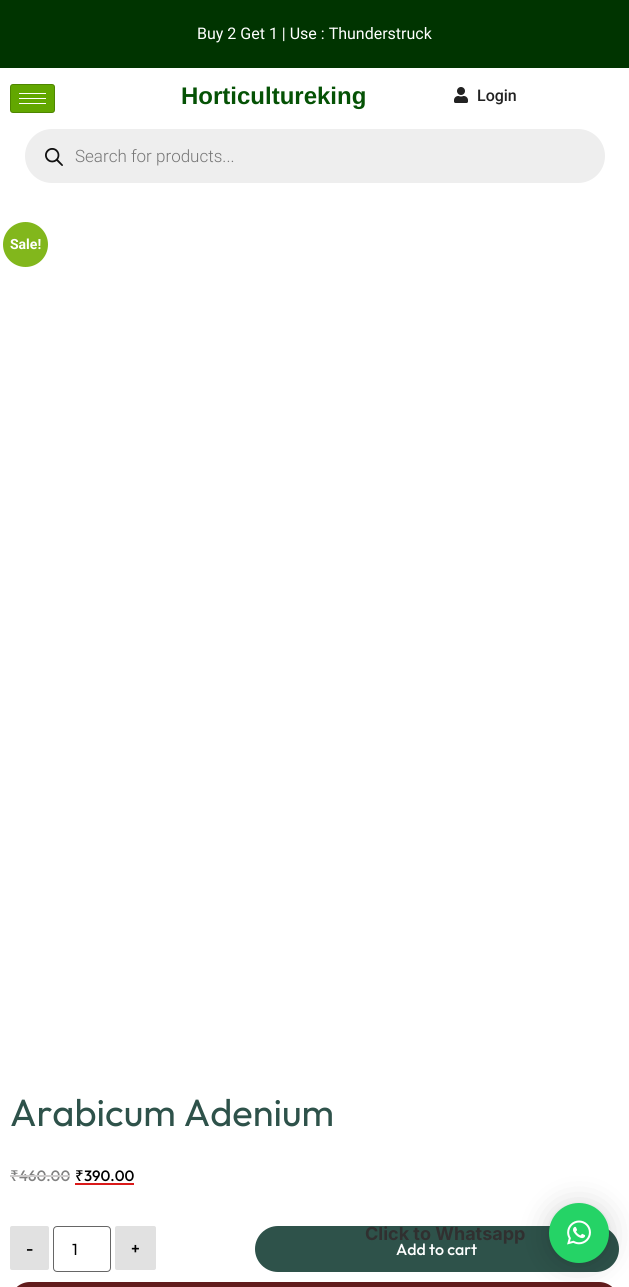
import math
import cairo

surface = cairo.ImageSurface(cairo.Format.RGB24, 629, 1287)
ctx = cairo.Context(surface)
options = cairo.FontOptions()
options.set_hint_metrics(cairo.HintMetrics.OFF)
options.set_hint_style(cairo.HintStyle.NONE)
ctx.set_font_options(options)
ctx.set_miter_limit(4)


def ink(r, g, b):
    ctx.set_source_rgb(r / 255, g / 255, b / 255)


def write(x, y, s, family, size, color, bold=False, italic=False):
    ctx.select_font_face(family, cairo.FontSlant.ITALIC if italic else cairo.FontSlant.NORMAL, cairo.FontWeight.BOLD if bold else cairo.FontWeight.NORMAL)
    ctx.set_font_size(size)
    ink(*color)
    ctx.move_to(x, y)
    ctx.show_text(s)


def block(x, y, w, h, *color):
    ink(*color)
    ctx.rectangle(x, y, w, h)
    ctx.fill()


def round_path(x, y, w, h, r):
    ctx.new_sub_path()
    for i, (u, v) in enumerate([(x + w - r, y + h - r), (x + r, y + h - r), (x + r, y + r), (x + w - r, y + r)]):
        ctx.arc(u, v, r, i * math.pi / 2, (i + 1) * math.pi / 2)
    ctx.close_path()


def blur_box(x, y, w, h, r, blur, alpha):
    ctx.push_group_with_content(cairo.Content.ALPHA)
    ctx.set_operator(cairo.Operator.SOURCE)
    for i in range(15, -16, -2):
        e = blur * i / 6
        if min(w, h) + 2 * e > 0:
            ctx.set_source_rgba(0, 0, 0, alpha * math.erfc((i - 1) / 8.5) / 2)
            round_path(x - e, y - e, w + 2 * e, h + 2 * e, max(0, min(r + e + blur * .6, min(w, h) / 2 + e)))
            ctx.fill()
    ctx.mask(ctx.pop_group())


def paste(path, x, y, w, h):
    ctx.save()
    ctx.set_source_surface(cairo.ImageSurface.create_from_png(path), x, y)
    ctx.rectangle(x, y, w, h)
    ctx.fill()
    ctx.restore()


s1 = dict(family="Roboto", size=16, color=(255, 255, 255))
s2 = dict(family="Liberation Sans", size=24, color=(5, 82, 5), bold=True)
s3 = dict(family="Roboto Medium", size=16, color=(34, 34, 34))
s4 = dict(family="Roboto Light", size=17, color=(119, 119, 119))
s5 = dict(family="Roboto", size=14, color=(255, 255, 255), bold=True)
s6 = dict(family="Outfit", size=38, color=(46, 82, 74))
s7 = dict(family="Noto Sans Medium", size=15, color=(128, 128, 128))
s8 = dict(family="Outfit Medium", size=15, color=(128, 128, 128))
s9 = dict(family="Noto Sans Medium", size=15, color=(0, 0, 0))
s10 = dict(family="Outfit Medium", size=15, color=(0, 0, 0))
s11 = dict(family="Outfit Medium", size=16, color=(0, 0, 0))
s12 = dict(family="Outfit", size=16, color=(0, 0, 0))
s13 = dict(family="Outfit Medium", size=16, color=(255, 255, 255))
s14 = dict(family="Inter", size=18, color=(48, 48, 48), bold=True)

ink(255, 255, 255)
ctx.paint()
block(0, 0, 629, 68, 0, 52, 0)
write(197, 39, "Buy 2 Get 1 | Use : Thunderstruck", **s1)
ink(98, 167, 0)
round_path(10, 84, 45, 29, 3)
ctx.fill()
round_path(10.5, 84.5, 44, 28, 2.5)
ctx.set_source_rgba(0, 0, 0, 0.2)
ctx.set_line_width(1)
ctx.stroke()
block(19, 93, 27, 1, 255, 255, 255)
block(19, 98, 27, 1, 255, 255, 255)
block(19, 103, 27, 1, 255, 255, 255)
write(181, 104, "Horticultureking", **s2)
paste("pic1.png", 454, 87, 14, 16)
write(477, 101, "Login", **s3)
ink(238, 238, 238)
round_path(25, 129, 580, 54, 27)
ctx.fill()
paste("pic2.png", 45, 148, 18, 18)
write(75, 162, "Search for products...", **s4)
ink(130, 183, 28)
ctx.new_path()
ctx.arc(25.5, 244.5, 22.5, 0, 2 * math.pi)
ctx.fill()
write(10, 249, "Sale!", **s5)
write(10, 1126, "Arabicum Adenium", **s6)
write(10, 1181, "₹", **s7)
write(19, 1181, "460.00", **s8)
block(10, 1175, 9, 2, 205, 203, 203)
block(19, 1175, 51, 2, 205, 203, 203)
write(75, 1181, "₹", **s9)
write(84, 1181, "390.00", **s10)
block(75, 1183, 59, 2, 218, 26, 26)
ink(225, 225, 225)
round_path(10, 1226, 39, 44, 2)
ctx.fill()
write(26, 1254, "-", **s11)
round_path(53.5, 1226.5, 57, 45, 3.5)
ink(102, 102, 102)
ctx.stroke()
write(72, 1255, "1", **s12)
ink(225, 225, 225)
round_path(115, 1226, 41, 44, 2)
ctx.fill()
write(131, 1254, "+", **s11)
ink(46, 82, 74)
round_path(255, 1226, 364, 46, 23)
ctx.fill()
write(396, 1255, "Add to cart", **s13)
ink(98, 28, 28)
round_path(10, 1282, 609, 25, 20)
ctx.fill()
ink(0, 0, 0)
blur_box(549, 1205, 60, 60, 30, 16, 0.16)
blur_box(549, 1204, 60, 60, 30, 3, 0.06)
ink(37, 211, 102)
ctx.arc(579, 1233, 30, 0, 2 * math.pi)
ctx.fill()
write(365, 1240, "Click to Whatsapp", **s14)
paste("pic3.png", 567, 1220, 24, 25)
surface.write_to_png("screenshot.png")
